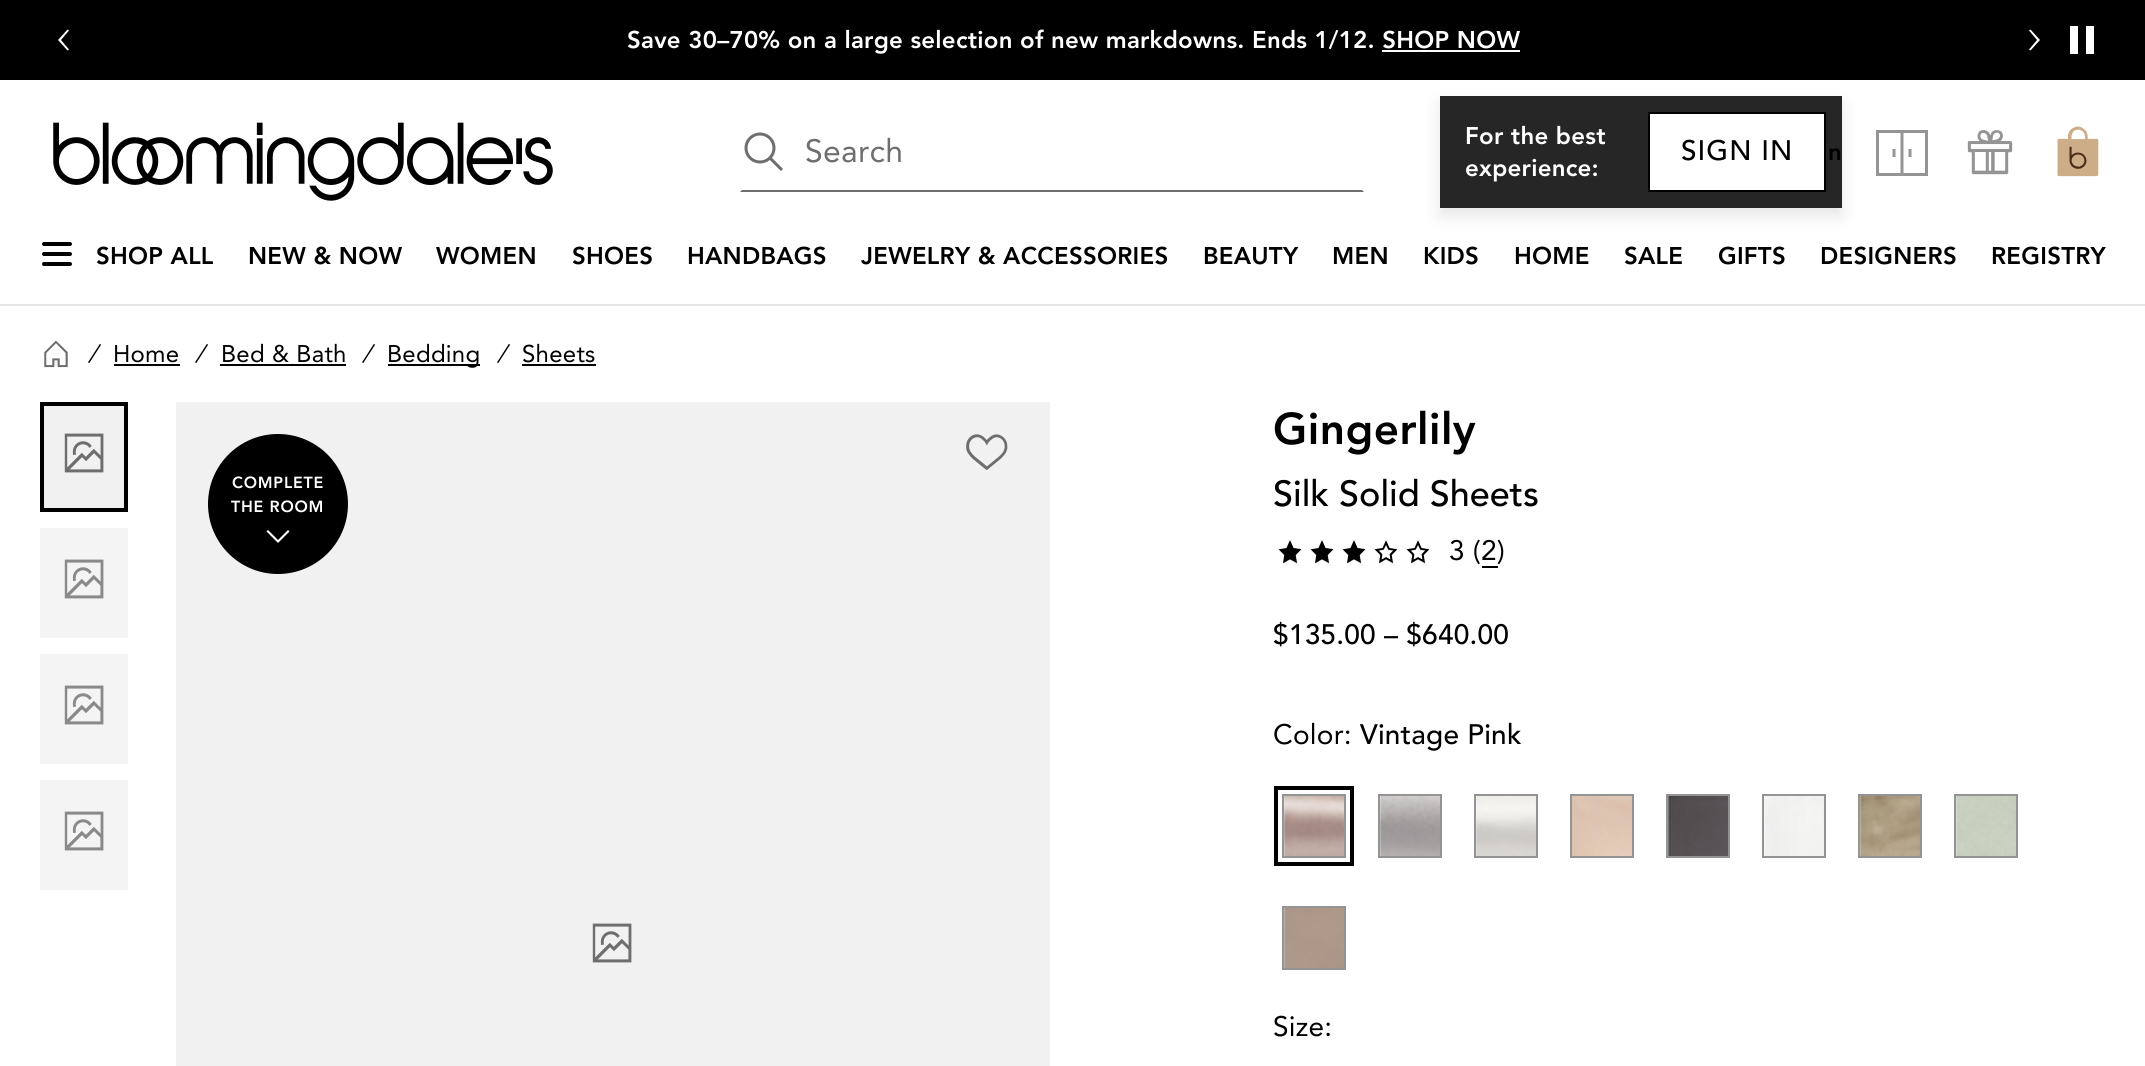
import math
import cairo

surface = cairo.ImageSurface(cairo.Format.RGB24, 2145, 1066)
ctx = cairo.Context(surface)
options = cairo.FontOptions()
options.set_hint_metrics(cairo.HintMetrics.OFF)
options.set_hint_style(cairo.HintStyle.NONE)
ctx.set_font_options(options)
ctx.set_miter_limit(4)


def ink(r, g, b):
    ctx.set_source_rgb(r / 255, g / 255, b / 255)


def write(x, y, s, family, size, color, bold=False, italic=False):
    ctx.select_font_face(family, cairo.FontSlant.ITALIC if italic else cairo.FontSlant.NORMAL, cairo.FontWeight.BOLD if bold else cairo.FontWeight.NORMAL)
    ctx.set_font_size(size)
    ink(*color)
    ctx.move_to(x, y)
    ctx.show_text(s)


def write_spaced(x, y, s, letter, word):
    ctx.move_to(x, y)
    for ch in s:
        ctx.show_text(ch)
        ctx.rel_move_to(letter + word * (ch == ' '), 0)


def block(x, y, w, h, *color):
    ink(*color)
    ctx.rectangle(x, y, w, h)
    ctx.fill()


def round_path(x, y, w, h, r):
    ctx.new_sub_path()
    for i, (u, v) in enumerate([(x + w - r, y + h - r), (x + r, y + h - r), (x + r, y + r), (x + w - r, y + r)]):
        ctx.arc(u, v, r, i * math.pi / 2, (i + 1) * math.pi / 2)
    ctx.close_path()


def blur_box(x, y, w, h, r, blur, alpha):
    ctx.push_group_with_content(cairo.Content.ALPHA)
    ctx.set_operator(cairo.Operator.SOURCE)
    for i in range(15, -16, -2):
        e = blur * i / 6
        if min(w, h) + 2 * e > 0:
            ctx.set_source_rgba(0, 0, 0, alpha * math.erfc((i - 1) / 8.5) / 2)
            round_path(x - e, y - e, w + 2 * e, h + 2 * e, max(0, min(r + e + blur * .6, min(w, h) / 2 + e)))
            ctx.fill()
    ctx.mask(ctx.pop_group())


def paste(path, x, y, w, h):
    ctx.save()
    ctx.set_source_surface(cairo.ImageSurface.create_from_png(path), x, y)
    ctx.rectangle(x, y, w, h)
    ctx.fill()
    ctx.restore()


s1 = dict(family="Avenir Medium", size=36, color=(0, 0, 0))

ink(255, 255, 255)
ctx.paint()
block(1440, 96, 402, 112, 38, 38, 38)
block(0, 0, 2145, 80, 0, 0, 0)
ink(255, 255, 255)
ctx.set_fill_rule(cairo.FillRule.EVEN_ODD)
ctx.new_path()
ctx.move_to(67.5, 29.5)
ctx.line_to(69, 30.5)
ctx.line_to(61, 40)
ctx.line_to(69, 49.5)
ctx.line_to(67.5, 50.5)
ctx.line_to(58, 40)
ctx.close_path()
ctx.fill()
ctx.select_font_face("Avenir Black")
ctx.set_font_size(24)
write_spaced(627, 48, "Save 30–70% on a large selection of new markdowns. Ends 1/12. SHOP NOW", 0.25, 0)
block(1382, 50, 138, 2, 255, 255, 255)
ctx.new_path()
ctx.move_to(2040, 40)
ctx.line_to(2030.5, 50.5)
ctx.line_to(2029, 49.5)
ctx.line_to(2037, 40)
ctx.line_to(2029, 30.5)
ctx.line_to(2030.5, 29.5)
ctx.close_path()
ctx.fill()
paste("pic1.png", 2070, 26, 24, 28)
paste("pic2.png", 53, 122, 500, 79)
paste("pic3.png", 744, 132, 39, 39)
ink(110, 110, 110)
ctx.set_fill_rule(cairo.FillRule.WINDING)
ctx.new_path()
ctx.move_to(1364, 192)
ctx.line_to(740, 192)
ctx.line_to(742, 190)
ctx.line_to(1362, 190)
ctx.close_path()
ctx.fill()
ctx.select_font_face("Avenir")
ctx.set_font_size(32)
write_spaced(805, 162, "Search", 0.25, 0)
ctx.save()
ctx.set_fill_rule(cairo.FillRule.EVEN_ODD)
ctx.new_path()
ctx.move_to(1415, 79)
ctx.line_to(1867, 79)
ctx.line_to(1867, 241)
ctx.line_to(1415, 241)
ctx.close_path()
ctx.move_to(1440, 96)
ctx.line_to(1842, 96)
ctx.line_to(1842, 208)
ctx.line_to(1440, 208)
ctx.close_path()
ctx.clip()
ink(0, 0, 0)
blur_box(1440, 104, 402, 112, 0, 8, 0.1)
ctx.restore()
ctx.select_font_face("Avenir Black")
ctx.set_font_size(24)
ink(255, 255, 255)
write_spaced(1465, 144, "For the best", 0.25, 0)
write_spaced(1465, 176, "experience:", 0.25, 0)
block(1650, 114, 174, 76, 255, 255, 255)
ctx.rectangle(1649, 113, 176, 78)
ink(0, 0, 0)
ctx.stroke()
ctx.select_font_face("Avenir Medium")
ctx.set_font_size(28)
write_spaced(1681, 160, "SIGN IN", 1, 0)
ctx.select_font_face("Avenir Black")
ctx.set_font_size(24)
write_spaced(1828, 160, "n", 0.25, 0)
paste("pic4.png", 1876, 130, 52, 46)
paste("pic5.png", 1967, 130, 46, 45)
paste("pic6.png", 2057, 126, 42, 51)
block(0, 304, 2145, 2, 230, 230, 230)
ink(0, 0, 0)
round_path(42, 242, 30, 4, 2)
ctx.fill()
round_path(42, 252, 30, 4, 2)
ctx.fill()
round_path(42, 262, 30, 4, 2)
ctx.fill()
write_spaced(96, 264, "SHOP ALL", 0.25, 0)
write_spaced(248, 264, "NEW & NOW", 0.25, 0)
write_spaced(436, 264, "WOMEN", 0.25, 0)
write_spaced(572, 264, "SHOES", 0.25, 0)
write_spaced(687, 264, "HANDBAGS", 0.25, 0)
write_spaced(861, 264, "JEWELRY & ACCESSORIES", 0.25, 0)
write_spaced(1203, 264, "BEAUTY", 0.25, 0)
write_spaced(1332, 264, "MEN", 0.25, 0)
write_spaced(1423, 264, "KIDS", 0.25, 0)
write_spaced(1514, 264, "HOME", 0.25, 0)
write_spaced(1624, 264, "SALE", 0.25, 0)
write_spaced(1718, 264, "GIFTS", 0.25, 0)
write_spaced(1820, 264, "DESIGNERS", 0.25, 0)
write_spaced(1991, 264, "REGISTRY", 0.25, 0)
paste("pic7.png", 44, 340, 24, 28)
ctx.select_font_face("Avenir", cairo.FontSlant.ITALIC)
write_spaced(88, 362, "/", 0.25, 0)
ctx.select_font_face("Avenir")
write_spaced(113, 362, "Home", 0.25, 0)
block(114, 364, 66, 2, 0, 0, 0)
ctx.select_font_face("Avenir", cairo.FontSlant.ITALIC)
write_spaced(195, 362, "/", 0.25, 0)
ctx.select_font_face("Avenir")
write_spaced(221, 362, "Bed & Bath", 0.25, 0)
block(220, 364, 126, 2, 0, 0, 0)
ctx.select_font_face("Avenir", cairo.FontSlant.ITALIC)
write_spaced(362, 362, "/", 0.25, 0)
block(388, 364, 92, 2, 0, 0, 0)
ctx.select_font_face("Avenir")
write_spaced(387, 362, "Bedding", 0.25, 0)
ctx.select_font_face("Avenir", cairo.FontSlant.ITALIC)
write_spaced(497, 362, "/", 0.25, 0)
ctx.select_font_face("Avenir")
write_spaced(522, 362, "Sheets", 0.25, 0)
block(522, 364, 74, 2, 0, 0, 0)
block(44, 406, 80, 102, 241, 241, 241)
paste("pic8.png", 64, 433, 40, 40)
ctx.rectangle(42, 404, 84, 106)
ink(0, 0, 0)
ctx.set_line_width(4)
ctx.stroke()
block(40, 528, 88, 110, 244, 244, 244)
paste("pic9.png", 64, 559, 40, 40)
block(40, 654, 88, 110, 244, 244, 244)
paste("pic9.png", 64, 685, 40, 40)
block(40, 780, 88, 110, 244, 244, 244)
paste("pic9.png", 64, 811, 40, 40)
block(176, 402, 874, 664, 241, 241, 241)
paste("pic8.png", 592, 923, 40, 40)
paste("pic10.png", 966, 434, 42, 37)
ink(0, 0, 0)
ctx.arc(278, 504, 70, 0, 2 * math.pi)
ctx.fill()
ctx.select_font_face("Avenir Black")
ctx.set_font_size(16)
ink(255, 255, 255)
write_spaced(232, 488, "COMPLETE", 0.75, 0)
write_spaced(231, 512, "THE ROOM", 0.75, 0)
ctx.set_fill_rule(cairo.FillRule.EVEN_ODD)
ctx.new_path()
ctx.move_to(266.5, 531.5)
ctx.line_to(268, 530)
ctx.line_to(278, 540)
ctx.line_to(288, 530)
ctx.line_to(289.5, 531.5)
ctx.line_to(278, 543)
ctx.close_path()
ctx.fill()
ctx.set_font_size(44)
ink(0, 0, 0)
write_spaced(1273, 444, "Gingerlily", 0.5, 0)
write(1273, 506, "Silk Solid Sheets", **s1)
paste("pic11.png", 1278, 540, 24, 24)
paste("pic11.png", 1310, 540, 24, 24)
paste("pic11.png", 1342, 540, 24, 24)
paste("pic12.png", 1374, 540, 24, 24)
paste("pic12.png", 1406, 540, 24, 24)
ctx.select_font_face("Avenir")
ctx.set_font_size(28)
write_spaced(1449, 560, "3 (2", 0.25, 0)
write_spaced(1497, 560, ")", 0.25, 0)
block(1482, 566, 16, 2, 0, 0, 0)
ctx.select_font_face("Avenir Medium")
write_spaced(1273, 644, "$135.00 – $640.00", 0.25, 0)
ctx.select_font_face("Avenir")
write_spaced(1273, 744, "Color:", 0.25, 0)
ctx.select_font_face("Avenir Medium")
write_spaced(1360, 744, "Vintage Pink", 0.25, 0)
ctx.rectangle(1276, 788, 76, 76)
ctx.stroke()
ctx.rectangle(1283, 795, 62, 62)
ink(148, 148, 148)
ctx.set_line_width(2)
ctx.stroke()
paste("pic13.png", 1284, 796, 60, 60)
ctx.rectangle(1379, 795, 62, 62)
ctx.stroke()
paste("pic14.png", 1380, 796, 60, 60)
ctx.rectangle(1475, 795, 62, 62)
ctx.stroke()
paste("pic15.png", 1476, 796, 60, 60)
ctx.rectangle(1571, 795, 62, 62)
ctx.stroke()
paste("pic16.png", 1572, 796, 60, 60)
ctx.rectangle(1667, 795, 62, 62)
ctx.stroke()
paste("pic17.png", 1668, 796, 60, 60)
ctx.rectangle(1763, 795, 62, 62)
ctx.stroke()
paste("pic18.png", 1764, 796, 60, 60)
ctx.rectangle(1859, 795, 62, 62)
ctx.stroke()
paste("pic19.png", 1860, 796, 60, 60)
ctx.rectangle(1955, 795, 62, 62)
ctx.stroke()
paste("pic20.png", 1956, 796, 60, 60)
ctx.rectangle(1283, 907, 62, 62)
ctx.stroke()
paste("pic21.png", 1284, 908, 60, 60)
ctx.select_font_face("Avenir")
ink(0, 0, 0)
write_spaced(1273, 1036, "Size:", 0.25, 0)
surface.write_to_png("screenshot.png")
